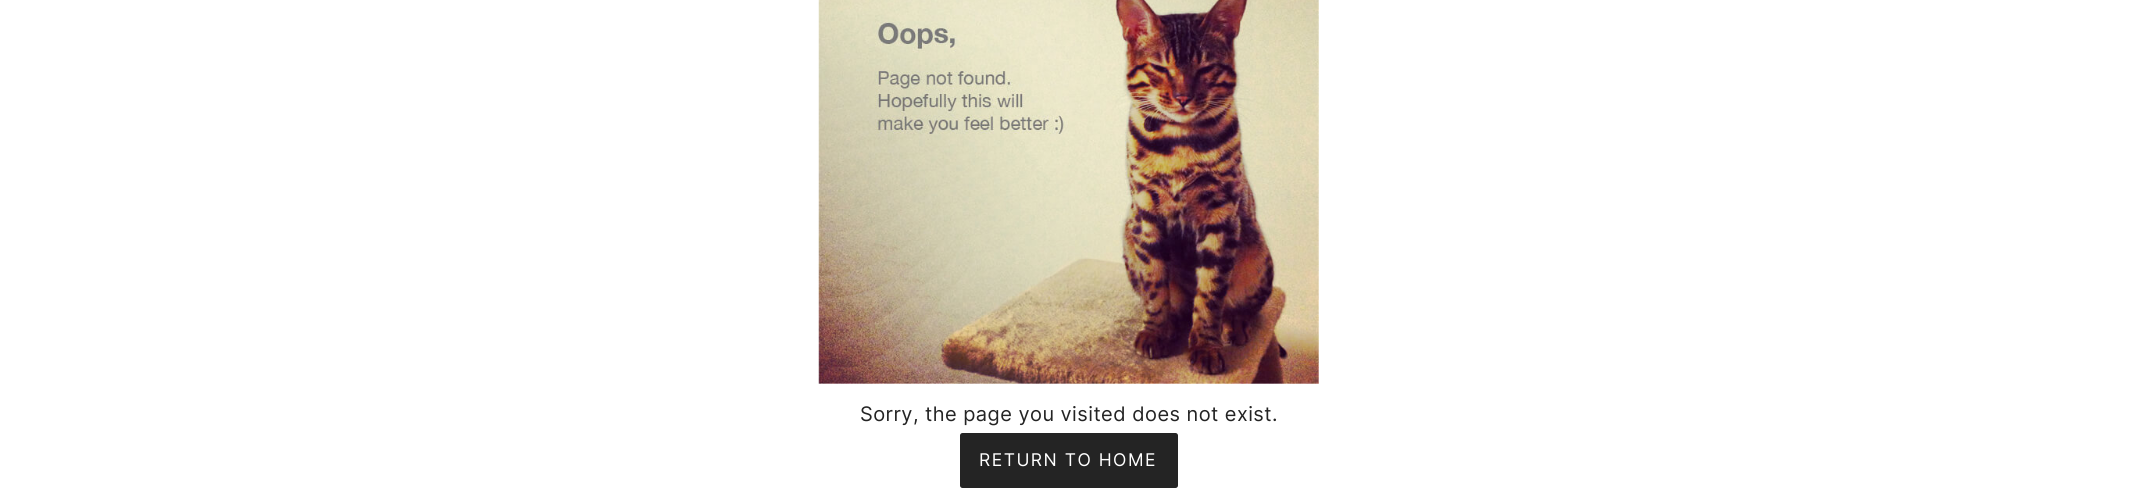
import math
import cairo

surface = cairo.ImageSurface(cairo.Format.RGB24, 2137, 495)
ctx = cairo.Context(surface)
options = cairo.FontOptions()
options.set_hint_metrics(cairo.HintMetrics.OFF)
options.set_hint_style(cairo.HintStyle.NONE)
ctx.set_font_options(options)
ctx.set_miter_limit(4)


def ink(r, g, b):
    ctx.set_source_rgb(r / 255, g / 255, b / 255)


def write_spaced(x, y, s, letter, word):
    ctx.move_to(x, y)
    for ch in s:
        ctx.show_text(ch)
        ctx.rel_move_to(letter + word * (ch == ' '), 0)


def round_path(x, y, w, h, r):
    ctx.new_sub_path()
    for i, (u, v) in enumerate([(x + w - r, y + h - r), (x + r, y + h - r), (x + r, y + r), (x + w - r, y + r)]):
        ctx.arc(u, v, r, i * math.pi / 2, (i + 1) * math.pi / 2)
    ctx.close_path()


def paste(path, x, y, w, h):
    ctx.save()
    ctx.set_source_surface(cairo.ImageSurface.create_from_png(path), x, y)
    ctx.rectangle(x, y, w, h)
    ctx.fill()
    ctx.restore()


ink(255, 255, 255)
ctx.paint()
paste("pic1.png", 818, 0, 501, 384)
ctx.select_font_face("Inter")
ctx.set_font_size(20)
ink(36, 36, 36)
write_spaced(860, 421, "Sorry, the page you visited does not exist.", 0.45, 0)
round_path(960, 433, 218, 55, 2.5)
ctx.fill()
ctx.set_font_size(17.5)
ink(255, 255, 255)
write_spaced(979, 466, "RETURN TO HOME", 1.5, 0)
surface.write_to_png("screenshot.png")
